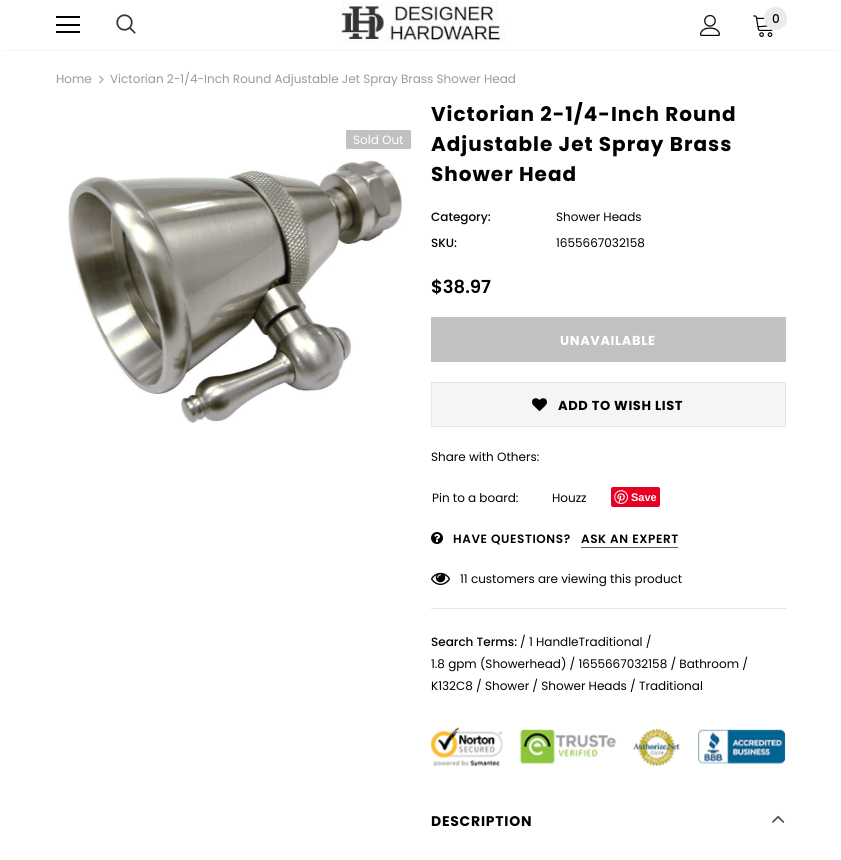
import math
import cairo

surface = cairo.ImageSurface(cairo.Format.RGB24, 841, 860)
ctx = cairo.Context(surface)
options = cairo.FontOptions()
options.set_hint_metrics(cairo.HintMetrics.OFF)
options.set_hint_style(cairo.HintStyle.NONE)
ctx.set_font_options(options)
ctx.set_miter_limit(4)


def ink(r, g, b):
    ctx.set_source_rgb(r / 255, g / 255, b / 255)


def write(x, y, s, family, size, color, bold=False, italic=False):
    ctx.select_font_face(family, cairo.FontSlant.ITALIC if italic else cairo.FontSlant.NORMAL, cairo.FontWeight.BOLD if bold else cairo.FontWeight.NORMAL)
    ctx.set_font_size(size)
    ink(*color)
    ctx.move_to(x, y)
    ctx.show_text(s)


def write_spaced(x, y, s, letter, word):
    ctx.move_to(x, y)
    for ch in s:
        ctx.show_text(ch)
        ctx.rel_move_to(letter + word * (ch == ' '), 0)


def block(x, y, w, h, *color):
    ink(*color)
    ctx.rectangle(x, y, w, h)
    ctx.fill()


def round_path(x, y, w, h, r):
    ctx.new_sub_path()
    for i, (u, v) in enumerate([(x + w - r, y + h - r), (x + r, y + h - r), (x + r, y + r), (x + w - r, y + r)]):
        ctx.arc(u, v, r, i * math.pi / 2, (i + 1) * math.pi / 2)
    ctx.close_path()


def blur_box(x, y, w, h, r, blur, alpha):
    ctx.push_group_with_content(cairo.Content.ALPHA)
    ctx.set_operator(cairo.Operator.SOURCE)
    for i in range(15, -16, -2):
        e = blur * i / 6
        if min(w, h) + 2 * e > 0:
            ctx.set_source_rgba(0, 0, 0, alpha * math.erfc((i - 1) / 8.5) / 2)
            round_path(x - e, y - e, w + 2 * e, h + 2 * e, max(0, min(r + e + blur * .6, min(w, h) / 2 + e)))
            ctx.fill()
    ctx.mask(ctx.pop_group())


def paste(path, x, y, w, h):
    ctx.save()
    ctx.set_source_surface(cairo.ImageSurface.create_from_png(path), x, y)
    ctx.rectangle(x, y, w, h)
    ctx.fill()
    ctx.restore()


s1 = dict(family="Poppins Medium", size=12, color=(0, 0, 0))
s2 = dict(family="Poppins", size=12, color=(153, 153, 153))
s3 = dict(family="Poppins", size=12, color=(255, 255, 255))
s4 = dict(family="Poppins", size=12, color=(0, 0, 0))
s5 = dict(family="Poppins SemiBold", size=18, color=(0, 0, 0))
s6 = dict(family="Liberation Sans", size=11, color=(255, 255, 255), bold=True)

ink(255, 255, 255)
ctx.paint()
ctx.save()
ctx.rectangle(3, 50, 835, 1)
ctx.clip()
ink(0, 0, 0)
blur_box(3, 6, 835, 44, 0, 1.5, 0.12)
ctx.restore()
block(56, 16, 24, 2, 0, 0, 0)
block(56, 24, 24, 2, 0, 0, 0)
block(56, 31, 24, 2, 0, 0, 0)
paste("pic1.png", 116, 14, 20, 20)
paste("pic2.png", 336, 2, 169, 42)
paste("pic3.png", 700, 15, 20, 21)
paste("pic4.png", 753, 15, 20, 22)
ink(235, 235, 235)
ctx.arc(775.5, 18.5, 11.5, 0, 2 * math.pi)
ctx.fill()
write(772, 23, "0", **s1)
write(56, 83, "Home", **s2)
paste("pic5.png", 99, 75, 5, 9)
write(110, 83, "Victorian 2-1/4-Inch Round Adjustable Jet Spray Brass Shower Head", **s2)
ink(193, 193, 193)
round_path(346, 130, 65, 19, 1)
ctx.fill()
write(353, 144, "Sold Out", **s3)
paste("pic6.png", 68, 160, 335, 264)
ctx.select_font_face("Poppins", cairo.FontSlant.NORMAL, cairo.FontWeight.BOLD)
ctx.set_font_size(20)
ink(0, 0, 0)
write_spaced(431, 121, "Victorian 2-1/4-Inch Round", 1, 0)
write_spaced(431, 151, "Adjustable Jet Spray Brass", 1, 0)
write_spaced(431, 181, "Shower Head", 1, 0)
write(431, 221, "Category:", **s1)
write(556, 221, "Shower Heads", **s4)
write(431, 247, "SKU:", **s1)
write(556, 247, "1655667032158", **s4)
write(431, 293, "$38.97", **s5)
block(431, 317, 355, 45, 193, 193, 193)
ctx.select_font_face("Poppins", cairo.FontSlant.NORMAL, cairo.FontWeight.BOLD)
ctx.set_font_size(13)
ink(255, 255, 255)
write_spaced(560, 345, "UNAVAILABLE", 0.6, 0)
ink(245, 245, 245)
ctx.rectangle(431.5, 382.5, 354, 44)
ctx.fill_preserve()
ink(230, 230, 230)
ctx.set_line_width(1)
ctx.stroke()
paste("pic7.png", 532, 398, 15, 13)
ink(0, 0, 0)
write_spaced(558, 410, "ADD TO WISH LIST", 0.6, 0)
write(431, 461, "Share with Others:", **s4)
write(432, 502, "Pin to a board:", **s4)
write(552, 502, "Houzz", **s4)
ink(230, 0, 35)
round_path(611, 487, 49, 20, 2)
ctx.fill()
paste("pic8.png", 614, 490, 14, 14)
write(631, 501, "Save", **s6)
paste("pic9.png", 431, 532, 12, 12)
ctx.select_font_face("Poppins SemiBold")
ctx.set_font_size(12)
ink(0, 0, 0)
write_spaced(453, 543, "HAVE QUESTIONS?", 0.6, 0)
write_spaced(581, 543, "ASK AN EXPERT", 0.6, 0)
block(581, 547, 97, 1, 90, 90, 90)
block(431, 608, 355, 1, 230, 230, 230)
paste("pic10.png", 431, 572, 19, 13)
write(460, 583, "11 customers are viewing this product", **s4)
write(431, 646, "Search Terms:", **s1)
write(520, 646, "/ 1 HandleTraditional /", **s4)
write(431, 668, "1.8 gpm (Showerhead) / 1655667032158 / Bathroom /", **s4)
write(431, 690, "K132C8 / Shower / Shower Heads / Traditional", **s4)
paste("pic11.png", 431, 727, 355, 39)
ctx.select_font_face("Poppins", cairo.FontSlant.NORMAL, cairo.FontWeight.BOLD)
ctx.set_font_size(14)
write_spaced(431, 826, "DESCRIPTION", 0.75, 0)
paste("pic12.png", 772, 815, 13, 8)
surface.write_to_png("screenshot.png")
